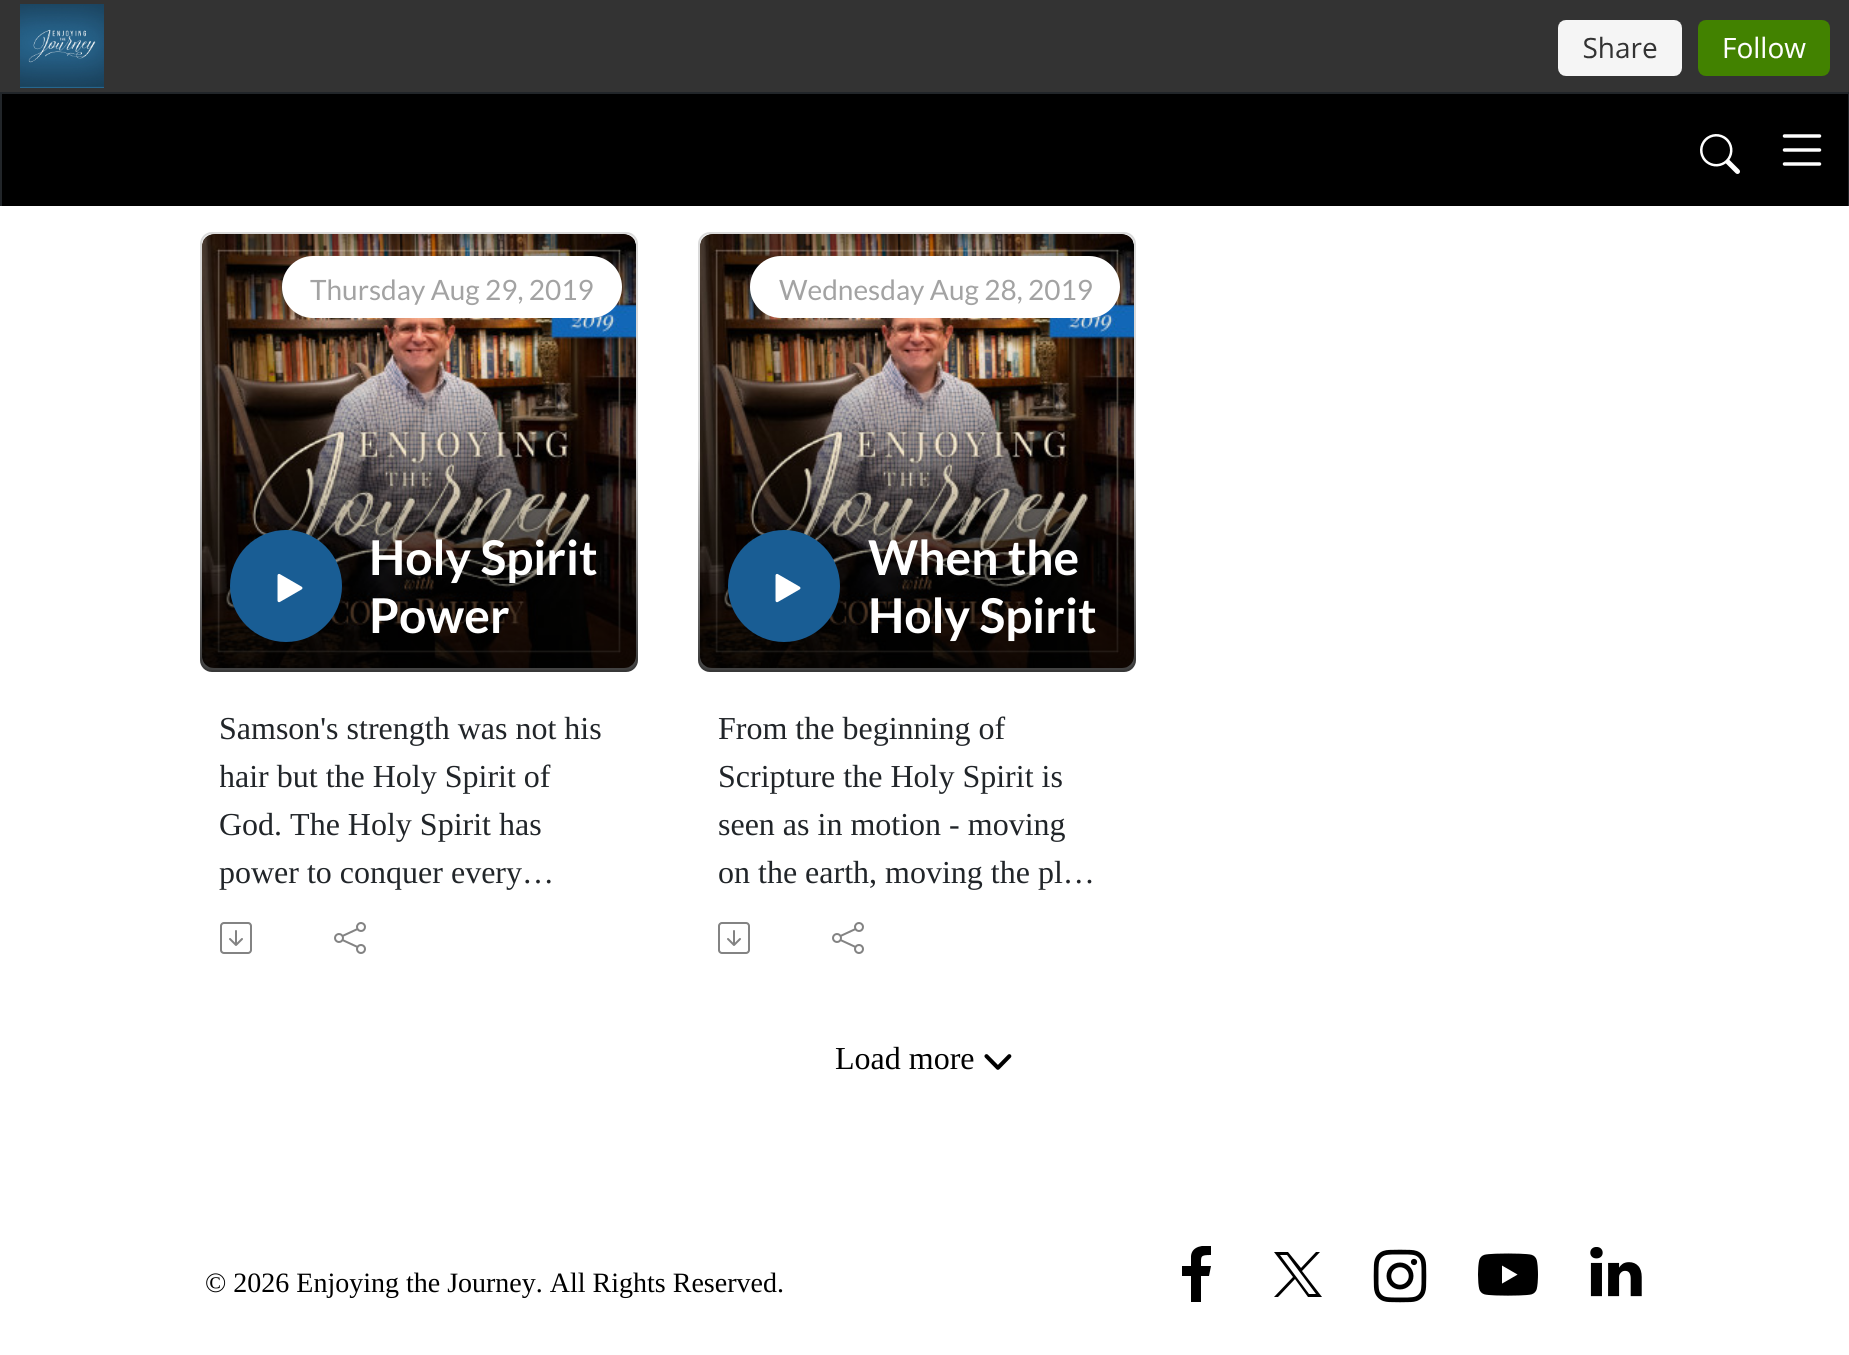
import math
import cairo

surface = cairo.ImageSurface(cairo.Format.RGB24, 1849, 1355)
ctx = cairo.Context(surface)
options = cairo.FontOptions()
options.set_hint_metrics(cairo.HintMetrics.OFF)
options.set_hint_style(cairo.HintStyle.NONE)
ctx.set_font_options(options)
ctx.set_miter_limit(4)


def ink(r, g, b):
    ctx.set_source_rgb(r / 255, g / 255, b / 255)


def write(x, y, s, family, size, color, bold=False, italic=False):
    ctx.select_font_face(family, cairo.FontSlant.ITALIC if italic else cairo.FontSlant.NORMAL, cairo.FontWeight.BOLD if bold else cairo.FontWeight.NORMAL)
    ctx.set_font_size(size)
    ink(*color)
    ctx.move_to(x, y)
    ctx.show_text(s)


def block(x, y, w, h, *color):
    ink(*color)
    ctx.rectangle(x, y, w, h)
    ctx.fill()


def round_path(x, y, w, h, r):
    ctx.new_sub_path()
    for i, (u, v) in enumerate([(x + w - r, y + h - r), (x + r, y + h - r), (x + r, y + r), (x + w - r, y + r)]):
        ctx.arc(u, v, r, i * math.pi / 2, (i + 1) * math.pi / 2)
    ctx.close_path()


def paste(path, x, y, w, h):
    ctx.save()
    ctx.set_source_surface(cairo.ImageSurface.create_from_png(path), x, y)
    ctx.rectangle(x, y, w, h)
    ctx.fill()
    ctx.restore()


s1 = dict(family="Lato", size=28, color=(163, 163, 163))
s2 = dict(family="Lato", size=48, color=(255, 255, 255), bold=True)
s3 = dict(family="Liberation Serif", size=32, color=(33, 37, 41))
s4 = dict(family="Liberation Serif", size=32, color=(0, 0, 0))
s5 = dict(family="Liberation Serif", size=28, color=(0, 0, 0))

ink(255, 255, 255)
ctx.paint()
block(0, 0, 1849, 92, 51, 51, 51)
paste("pic1.png", 20, 4, 1810, 84)
block(0, 92, 1849, 2, 33, 37, 41)
block(1848, 92, 1, 114, 33, 37, 41)
block(0, 92, 2, 114, 33, 37, 41)
block(2, 94, 1846, 112, 0, 0, 0)
paste("pic2.png", 1700, 134, 40, 40)
paste("pic3.png", 1782, 134, 40, 32)
round_path(201, 233, 436, 438, 11)
ink(218, 218, 218)
ctx.stroke()
paste("pic4.png", 202, 234, 434, 434)
ink(255, 255, 255)
round_path(282, 256, 340, 62, 31)
ctx.fill()
write(310, 300, "Thursday Aug 29, 2019", **s1)
gradient = cairo.LinearGradient(419, 452, 419, 672)
gradient.add_color_stop_rgba(0, 0, 0, 0, 0)
gradient.add_color_stop_rgba(1, 0, 0, 0, 0.75)
ctx.set_source(gradient)
round_path(200, 452, 438, 220, 12)
ctx.fill()
ink(25, 93, 148)
ctx.arc(286, 586, 56, 0, 2 * math.pi)
ctx.fill()
paste("pic5.png", 277, 573, 26, 30)
write(369, 575, "Holy Spirit", **s2)
write(369, 633, "Power", **s2)
write(219, 739, "Samson's strength was not his", **s3)
ctx.save()
ctx.rectangle(220, 682, 386, 216)
ctx.clip()
write(219, 787, "hair but the Holy Spirit of", **s3)
ctx.restore()
write(219, 835, "God. The Holy Spirit has", **s3)
write(219, 883, "power to conquer every…", **s3)
paste("pic6.png", 220, 922, 32, 32)
paste("pic7.png", 334, 922, 32, 32)
round_path(699, 233, 436, 438, 11)
ink(218, 218, 218)
ctx.stroke()
paste("pic4.png", 700, 234, 434, 434)
ink(255, 255, 255)
round_path(750, 256, 370, 62, 31)
ctx.fill()
write(779, 300, "Wednesday Aug 28, 2019", **s1)
gradient = cairo.LinearGradient(917, 452, 917, 672)
gradient.add_color_stop_rgba(0, 0, 0, 0, 0)
gradient.add_color_stop_rgba(1, 0, 0, 0, 0.75)
ctx.set_source(gradient)
round_path(698, 452, 438, 220, 12)
ctx.fill()
ink(25, 93, 148)
ctx.arc(784, 586, 56, 0, 2 * math.pi)
ctx.fill()
paste("pic5.png", 775, 573, 26, 30)
write(868, 575, "When the", **s2)
write(868, 633, "Holy Spirit", **s2)
write(718, 739, "From the beginning of", **s3)
write(718, 787, "Scripture the Holy Spirit is", **s3)
write(718, 835, "seen as in motion - moving", **s3)
write(718, 883, "on the earth, moving the pl…", **s3)
paste("pic6.png", 718, 922, 32, 32)
paste("pic7.png", 832, 922, 32, 32)
write(835, 1069, "Load more", **s4)
paste("pic8.png", 984, 1054, 28, 16)
write(205, 1292, "© 2026 Enjoying the Journey. All Rights Reserved.", **s5)
ctx.save()
ctx.rectangle(1166, 1246, 60, 60)
ctx.clip()
ctx.new_path()
ctx.move_to(1211, 1246)
ctx.line_to(1211, 1255)
ctx.curve_to(1200, 1255, 1201, 1256, 1201, 1266)
ctx.line_to(1211, 1266)
ctx.line_to(1209, 1276)
ctx.line_to(1201, 1276)
ctx.line_to(1201, 1302)
ctx.line_to(1191, 1302)
ctx.line_to(1191, 1276)
ctx.line_to(1182, 1276)
ctx.line_to(1182, 1266)
ctx.line_to(1191, 1266)
ctx.line_to(1191, 1256)
ctx.curve_to(1192, 1246, 1203, 1245, 1211, 1246)
ctx.close_path()
ctx.fill()
ctx.restore()
ctx.new_path()
ctx.move_to(1274, 1252)
ctx.line_to(1293, 1277)
ctx.line_to(1274, 1297)
ctx.line_to(1278, 1297)
ctx.line_to(1295, 1279)
ctx.line_to(1308, 1297)
ctx.line_to(1322, 1297)
ctx.line_to(1302, 1271)
ctx.line_to(1320, 1252)
ctx.line_to(1316, 1252)
ctx.line_to(1301, 1268)
ctx.line_to(1288, 1252)
ctx.close_path()
ctx.move_to(1280, 1255)
ctx.line_to(1287, 1255)
ctx.line_to(1316, 1294)
ctx.line_to(1309, 1294)
ctx.close_path()
ctx.fill()
paste("pic9.png", 1373, 1249, 54, 54)
paste("pic10.png", 1478, 1253, 60, 43)
paste("pic11.png", 1590, 1247, 52, 50)
surface.write_to_png("screenshot.png")
